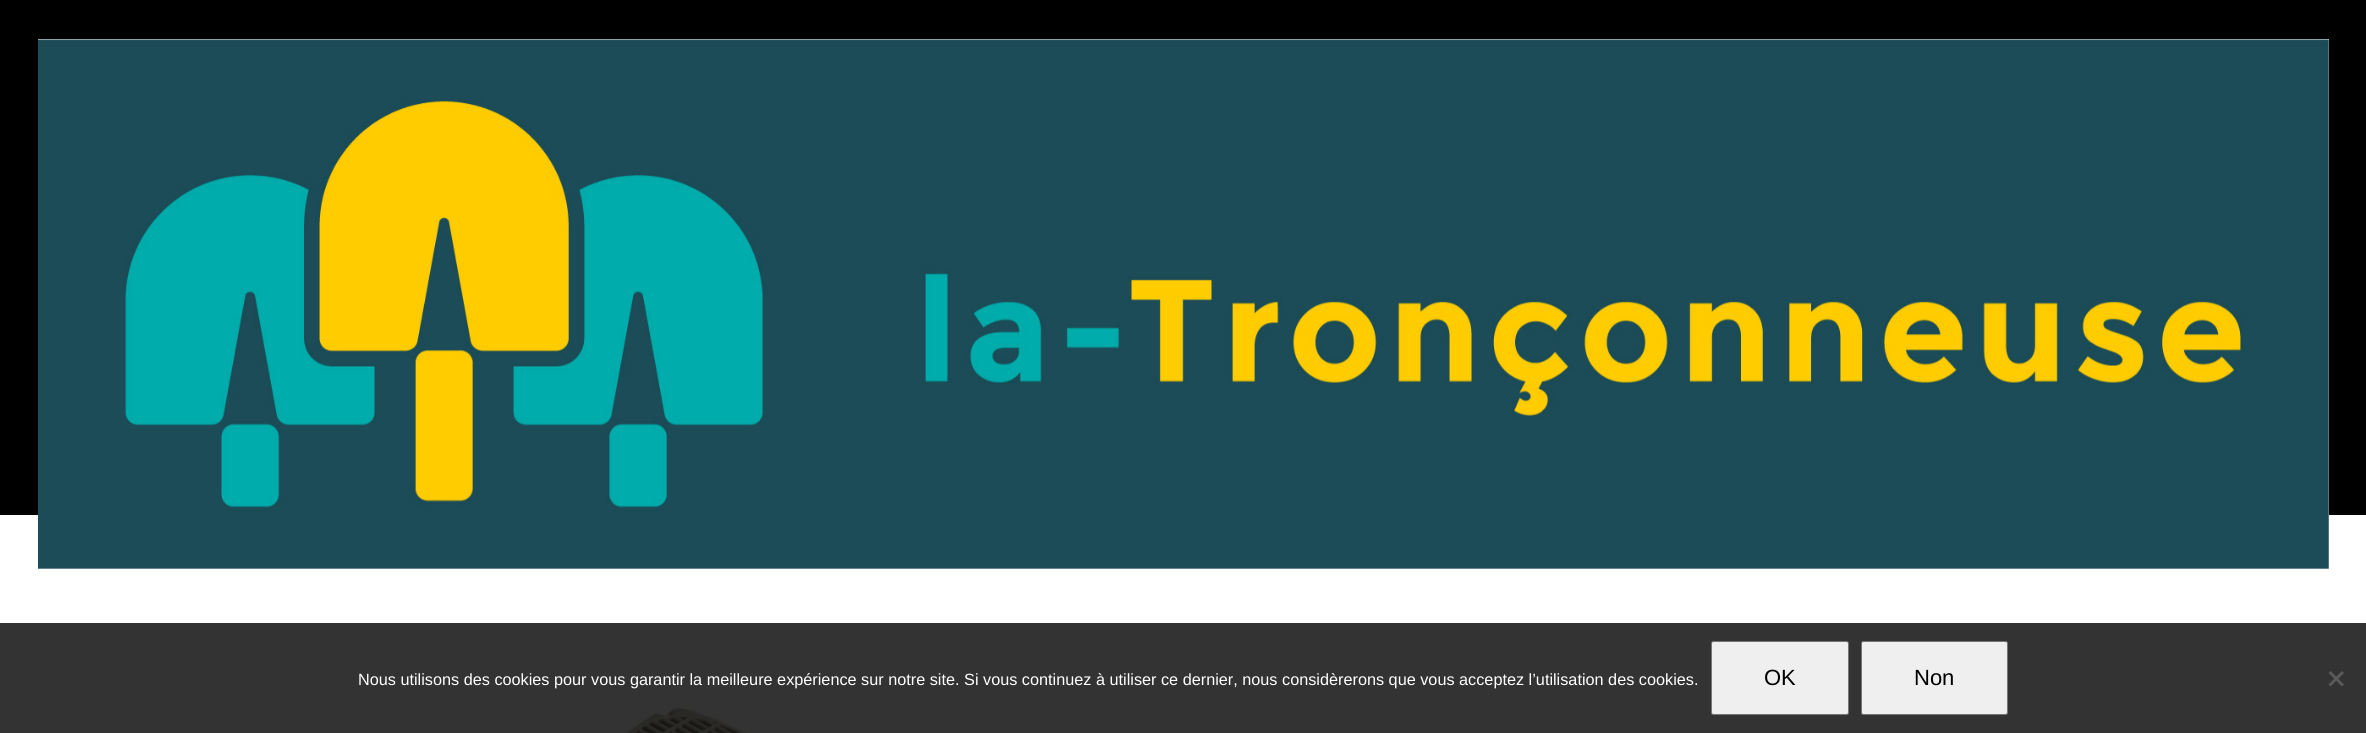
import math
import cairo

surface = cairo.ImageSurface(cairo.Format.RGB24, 2366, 733)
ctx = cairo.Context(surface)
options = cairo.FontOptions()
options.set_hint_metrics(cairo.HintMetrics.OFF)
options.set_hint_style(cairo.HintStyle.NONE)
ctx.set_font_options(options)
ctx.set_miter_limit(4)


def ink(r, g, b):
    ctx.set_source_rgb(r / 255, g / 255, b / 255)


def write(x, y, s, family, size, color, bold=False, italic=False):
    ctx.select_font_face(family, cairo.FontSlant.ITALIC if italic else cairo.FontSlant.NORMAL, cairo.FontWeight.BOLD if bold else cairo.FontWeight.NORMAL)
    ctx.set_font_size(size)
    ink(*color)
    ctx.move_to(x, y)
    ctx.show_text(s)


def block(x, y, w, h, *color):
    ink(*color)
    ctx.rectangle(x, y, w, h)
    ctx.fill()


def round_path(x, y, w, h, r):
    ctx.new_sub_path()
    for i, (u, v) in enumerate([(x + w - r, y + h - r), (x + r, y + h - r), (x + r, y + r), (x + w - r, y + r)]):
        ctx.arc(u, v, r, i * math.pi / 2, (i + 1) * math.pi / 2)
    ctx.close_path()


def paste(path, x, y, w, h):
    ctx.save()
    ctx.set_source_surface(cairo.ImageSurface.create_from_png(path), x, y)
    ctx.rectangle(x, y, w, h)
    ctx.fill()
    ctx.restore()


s1 = dict(family="Liberation Sans", size=16.25, color=(255, 255, 255))
s2 = dict(family="Liberation Sans", size=22, color=(0, 0, 0))

ink(255, 255, 255)
ctx.paint()
block(0, 623, 2366, 110, 51, 51, 51)
block(0, 0, 2366, 515, 0, 0, 0)
paste("pic1.png", 38, 39, 2291, 530)
paste("pic2.png", 617, 707, 132, 26)
write(358, 685, "Nous utilisons des cookies pour vous garantir la meilleure expérience sur notre site. Si vous continuez à utiliser ce dernier, nous considèrerons que vous acceptez l’utilisation des cookies.", **s1)
ink(239, 239, 239)
round_path(1711.5, 641.5, 137, 73, 2)
ctx.fill_preserve()
ink(118, 118, 118)
ctx.set_line_width(1)
ctx.stroke()
write(1764, 685, "OK", **s2)
ink(239, 239, 239)
round_path(1861.5, 641.5, 146, 73, 2)
ctx.fill_preserve()
ink(118, 118, 118)
ctx.stroke()
write(1914, 685, "Non", **s2)
ink(90, 90, 90)
ctx.new_path()
ctx.move_to(2342, 671)
ctx.line_to(2344, 673)
ctx.line_to(2330.5, 686.5)
ctx.line_to(2328.5, 684.5)
ctx.close_path()
ctx.fill()
ctx.new_path()
ctx.move_to(2328.5, 673)
ctx.line_to(2330.5, 671)
ctx.line_to(2344, 684.5)
ctx.line_to(2342, 686.5)
ctx.close_path()
ctx.fill()
surface.write_to_png("screenshot.png")
